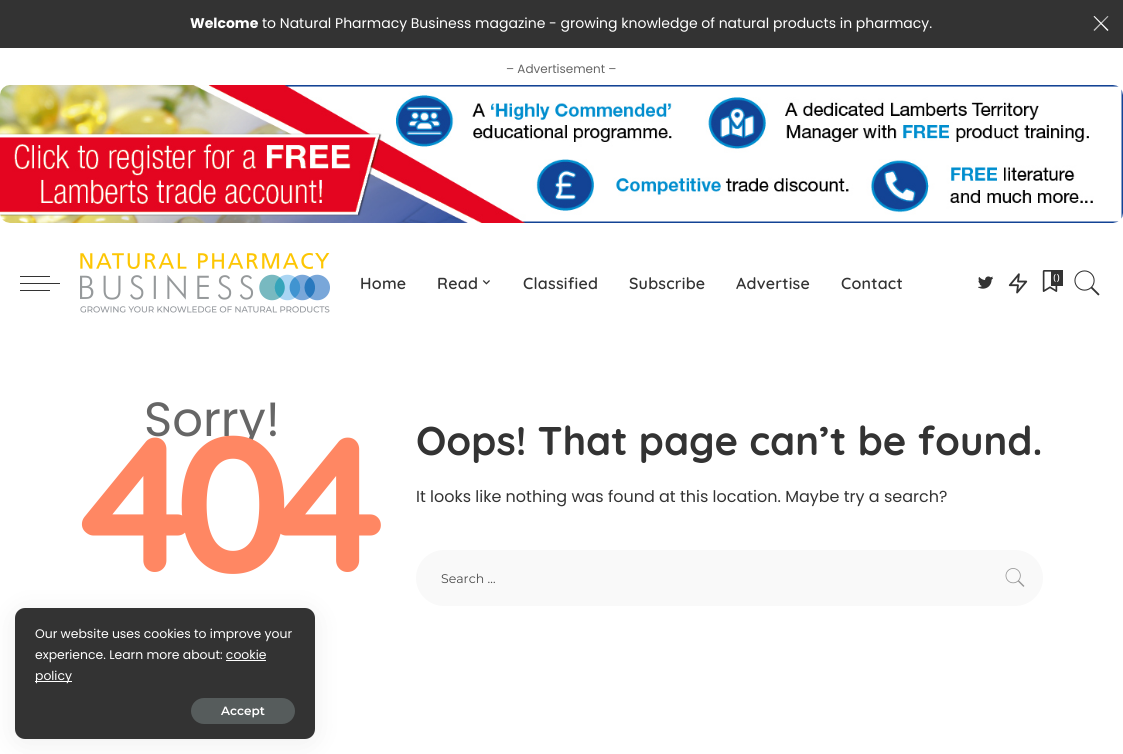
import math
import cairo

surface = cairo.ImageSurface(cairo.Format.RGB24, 1123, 754)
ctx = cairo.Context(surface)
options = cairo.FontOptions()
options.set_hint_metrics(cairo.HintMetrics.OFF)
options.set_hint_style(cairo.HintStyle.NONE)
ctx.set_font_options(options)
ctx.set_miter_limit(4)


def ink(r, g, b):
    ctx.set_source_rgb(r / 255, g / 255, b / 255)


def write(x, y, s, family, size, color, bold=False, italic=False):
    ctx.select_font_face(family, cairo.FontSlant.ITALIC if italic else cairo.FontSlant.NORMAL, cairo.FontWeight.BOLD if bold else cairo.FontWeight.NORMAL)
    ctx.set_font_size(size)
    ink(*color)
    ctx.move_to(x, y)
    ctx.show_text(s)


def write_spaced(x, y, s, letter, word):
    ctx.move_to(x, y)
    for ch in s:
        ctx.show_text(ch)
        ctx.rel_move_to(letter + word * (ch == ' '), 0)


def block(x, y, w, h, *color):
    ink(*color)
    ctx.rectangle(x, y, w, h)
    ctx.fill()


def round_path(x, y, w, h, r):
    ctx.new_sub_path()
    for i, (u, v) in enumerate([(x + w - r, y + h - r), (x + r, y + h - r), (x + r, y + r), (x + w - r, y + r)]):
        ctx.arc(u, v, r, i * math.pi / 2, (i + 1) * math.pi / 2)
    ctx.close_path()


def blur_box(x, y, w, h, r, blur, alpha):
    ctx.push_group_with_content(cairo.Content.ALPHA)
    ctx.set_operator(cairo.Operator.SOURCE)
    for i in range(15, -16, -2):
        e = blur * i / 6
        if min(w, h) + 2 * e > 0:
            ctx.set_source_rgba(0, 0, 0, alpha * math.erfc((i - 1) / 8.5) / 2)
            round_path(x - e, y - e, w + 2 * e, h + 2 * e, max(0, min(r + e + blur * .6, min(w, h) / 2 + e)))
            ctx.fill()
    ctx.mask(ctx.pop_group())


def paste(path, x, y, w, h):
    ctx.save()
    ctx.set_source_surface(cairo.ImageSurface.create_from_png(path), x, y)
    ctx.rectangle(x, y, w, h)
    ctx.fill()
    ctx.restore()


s1 = dict(family="Poppins", size=14, color=(255, 255, 255), bold=True)
s2 = dict(family="Poppins", size=14, color=(255, 255, 255))
s3 = dict(family="Poppins", size=12, color=(102, 102, 102))
s4 = dict(family="Poppins", size=11, color=(255, 255, 255))
s5 = dict(family="Poppins", size=48, color=(102, 102, 102))
s6 = dict(family="Quicksand", size=40, color=(51, 51, 51), bold=True)
s7 = dict(family="Poppins", size=16, color=(51, 51, 51))
s8 = dict(family="Montserrat", size=12.5, color=(75, 75, 75))
s9 = dict(family="Poppins", size=12.4, color=(255, 255, 255))
s10 = dict(family="Montserrat SemiBold", size=12, color=(255, 255, 255))

ink(255, 255, 255)
ctx.paint()
block(0, 0, 1123, 48, 51, 51, 51)
write(190, 28, "Welcome", **s1)
write(262, 28, "to Natural Pharmacy Business magazine - growing knowledge of natural products in pharmacy.", **s2)
ink(194, 194, 194)
ctx.new_path()
ctx.move_to(1093.5, 30)
ctx.line_to(1107.5, 16)
ctx.line_to(1108.5, 16.5)
ctx.line_to(1094.5, 31)
ctx.close_path()
ctx.fill()
ink(255, 255, 255)
ctx.new_path()
ctx.move_to(1094.5, 16)
ctx.line_to(1108.5, 30)
ctx.line_to(1107.5, 31)
ctx.line_to(1093.5, 16.5)
ctx.close_path()
ctx.fill()
write(506, 73, "– Advertisement –", **s3)
paste("pic1.png", 0, 85, 1123, 138)
block(20, 283, 40, 1, 51, 51, 51)
block(20, 276, 30, 1, 51, 51, 51)
block(20, 290, 30, 1, 51, 51, 51)
paste("pic2.png", 80, 253, 250, 60)
ctx.select_font_face("Quicksand SemiBold")
ctx.set_font_size(16)
write_spaced(360, 289, "Home", 0.25, 0)
write_spaced(437, 289, "Read", 0.25, 0)
paste("pic3.png", 482, 280, 8, 5)
write_spaced(523, 289, "Classified", 0.25, 0)
write_spaced(629, 289, "Subscribe", 0.25, 0)
write_spaced(736, 289, "Advertise", 0.25, 0)
write_spaced(841, 289, "Contact", 0.25, 0)
paste("pic4.png", 978, 276, 15, 13)
paste("pic5.png", 1008, 273, 20, 21)
block(1051, 270, 12, 16, 51, 51, 51)
write(1053, 282, "0", **s4)
paste("pic6.png", 1042, 270, 16, 22)
paste("pic7.png", 1074, 270, 26, 26)
write(144, 436, "Sorry!", **s5)
ctx.select_font_face("Quicksand", cairo.FontSlant.NORMAL, cairo.FontWeight.BOLD)
ctx.set_font_size(192)
ink(255, 135, 99)
write_spaced(80, 572, "404", -19, 0)
write(416, 455, "Oops! That page can’t be found.", **s6)
write(416, 502, "It looks like nothing was found at this location. Maybe try a search?", **s7)
ink(249, 249, 249)
round_path(416, 550, 627, 56, 28)
ctx.fill()
write(441, 583, "Search …", **s8)
paste("pic8.png", 1005, 568, 20, 19)
ink(0, 0, 0)
blur_box(15, 612, 300, 131, 10, 15, 0.07)
ink(51, 51, 51)
round_path(15, 608, 300, 131, 10)
ctx.fill()
write(35, 638, "Our website uses cookies to improve your", **s9)
write(35, 659, "experience. Learn more about: cookie", **s9)
block(35, 681, 37, 1, 255, 255, 255)
write(35, 680, "policy", **s9)
block(226, 660, 40, 1, 255, 255, 255)
ink(86, 92, 92)
round_path(191, 698, 104, 26, 13)
ctx.fill()
write(221, 715, "Accept", **s10)
surface.write_to_png("screenshot.png")
